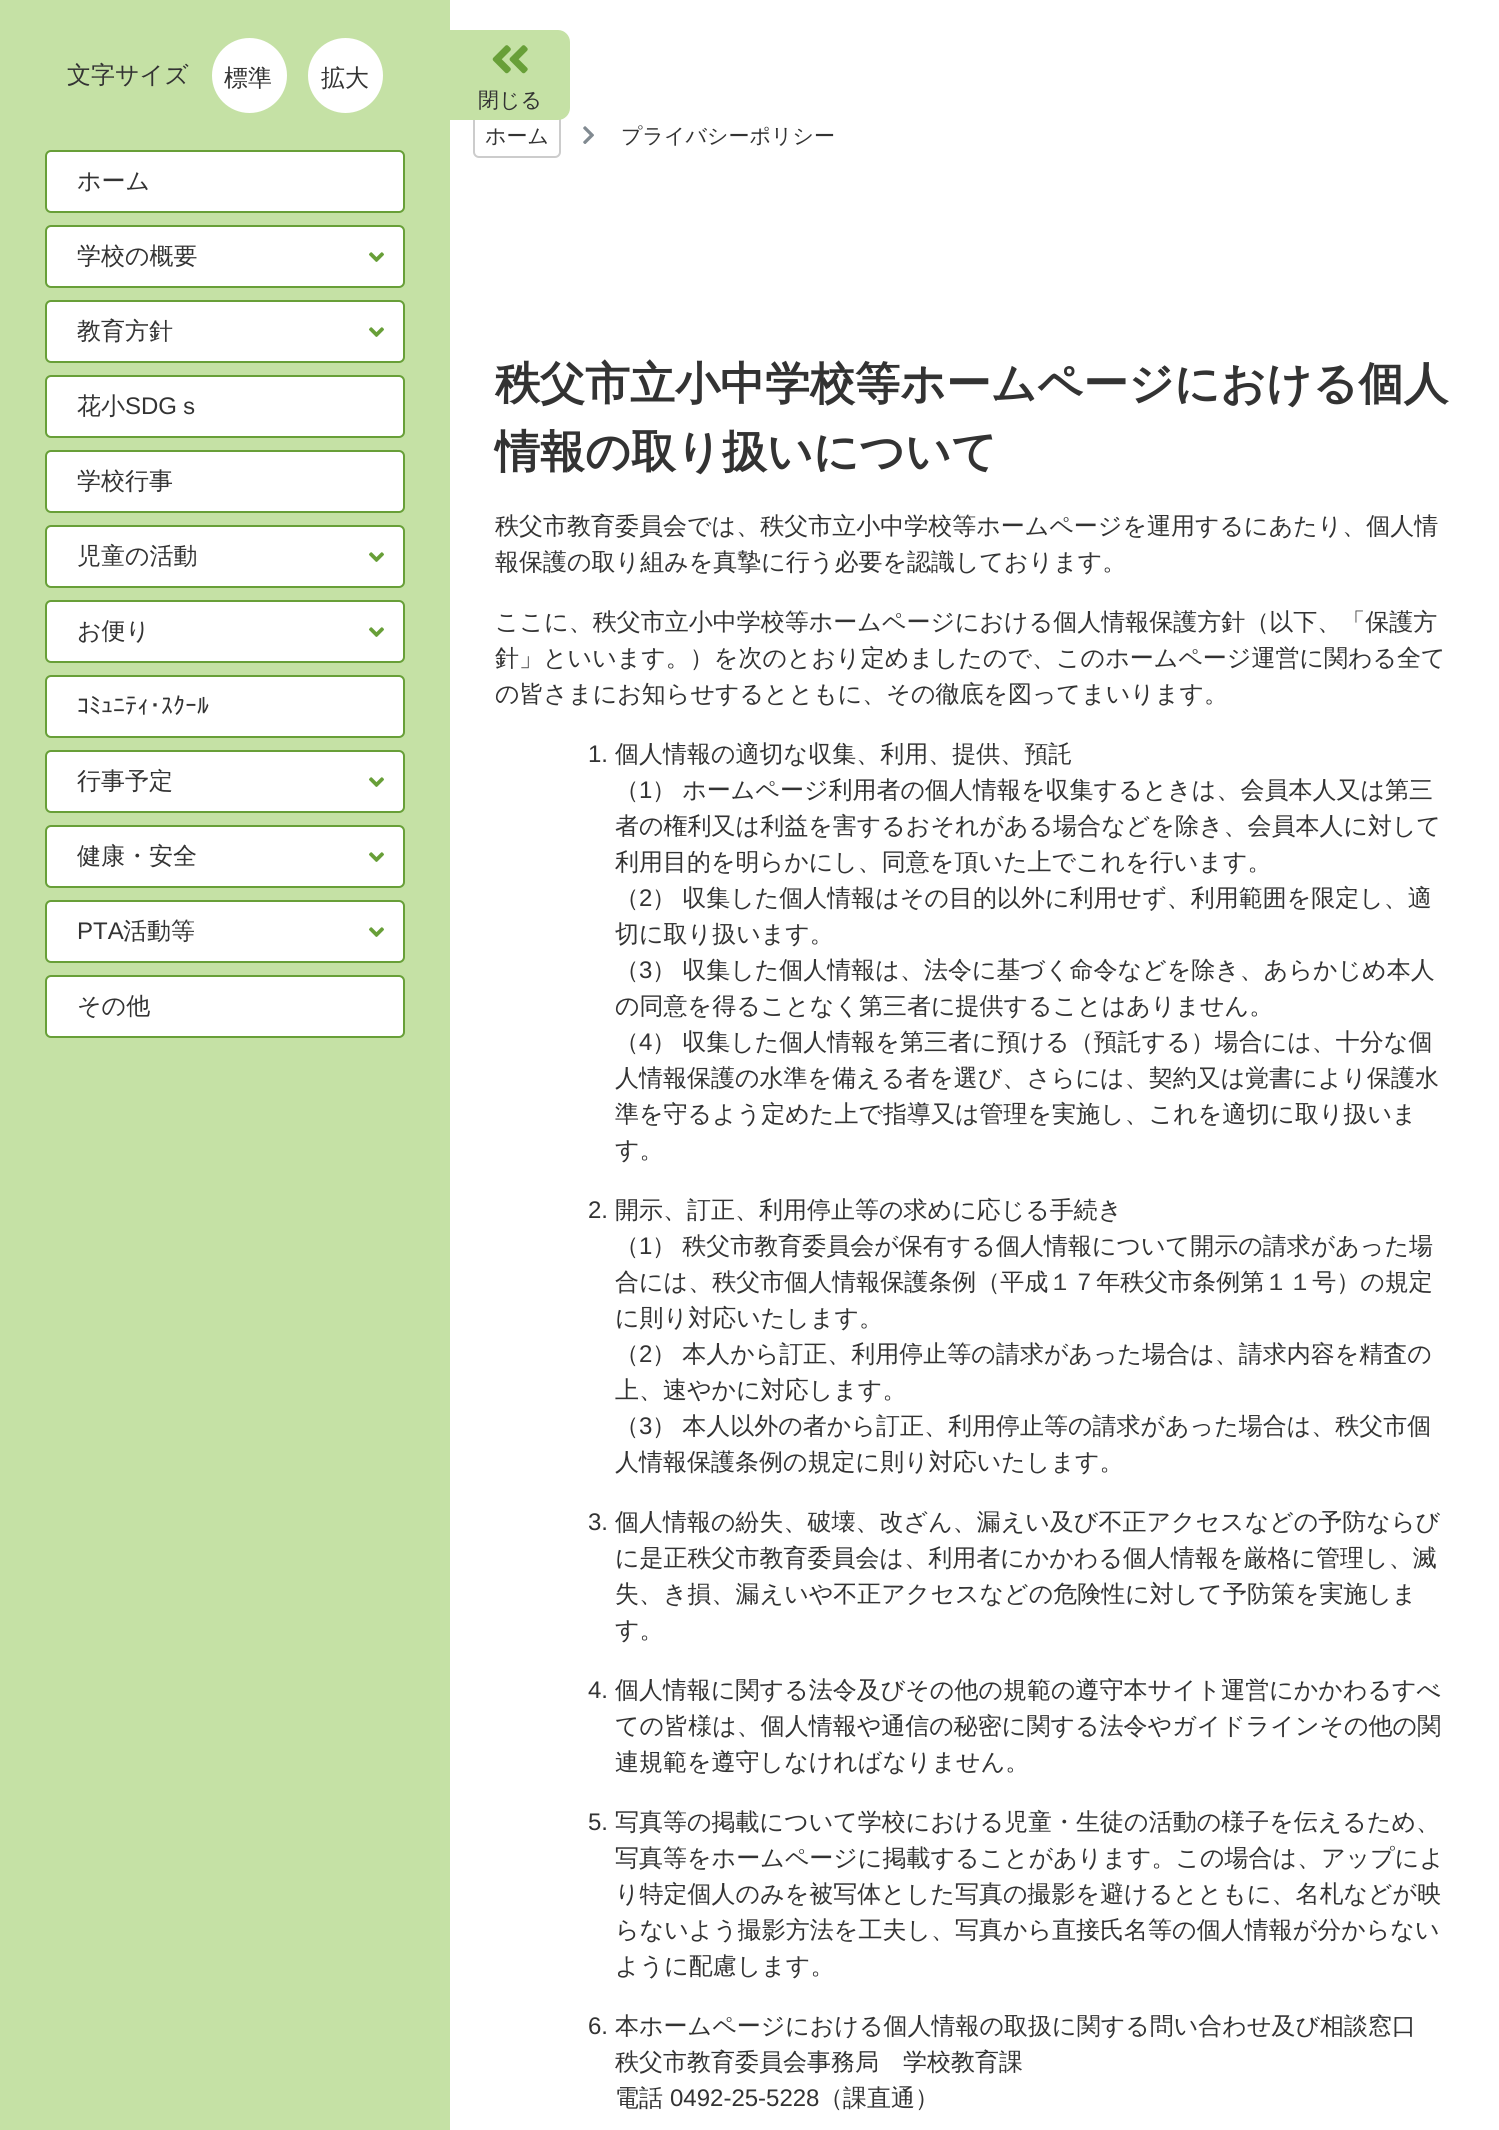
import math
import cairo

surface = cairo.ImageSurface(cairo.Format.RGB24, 1499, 2130)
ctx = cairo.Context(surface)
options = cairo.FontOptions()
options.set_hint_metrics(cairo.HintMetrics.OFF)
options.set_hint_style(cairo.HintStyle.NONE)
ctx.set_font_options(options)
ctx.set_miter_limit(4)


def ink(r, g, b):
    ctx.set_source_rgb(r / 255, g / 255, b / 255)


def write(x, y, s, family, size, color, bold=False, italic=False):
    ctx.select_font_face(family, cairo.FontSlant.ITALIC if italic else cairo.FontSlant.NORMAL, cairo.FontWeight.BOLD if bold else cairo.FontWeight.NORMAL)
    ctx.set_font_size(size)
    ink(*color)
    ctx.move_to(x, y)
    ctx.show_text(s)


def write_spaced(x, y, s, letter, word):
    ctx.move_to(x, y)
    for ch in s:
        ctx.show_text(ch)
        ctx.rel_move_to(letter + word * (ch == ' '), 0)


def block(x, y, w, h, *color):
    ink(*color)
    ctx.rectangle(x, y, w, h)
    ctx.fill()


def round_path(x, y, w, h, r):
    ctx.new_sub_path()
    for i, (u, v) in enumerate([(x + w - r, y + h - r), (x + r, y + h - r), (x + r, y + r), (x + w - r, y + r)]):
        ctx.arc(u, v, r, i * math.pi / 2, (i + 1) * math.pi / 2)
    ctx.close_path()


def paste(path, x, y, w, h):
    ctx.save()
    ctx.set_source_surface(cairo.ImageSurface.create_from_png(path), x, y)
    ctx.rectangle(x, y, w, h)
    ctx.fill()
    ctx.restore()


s1 = dict(family="WenQuanYi Zen Hei Medium", size=24, color=(51, 51, 51))
s2 = dict(family="Liberation Sans", size=24, color=(51, 51, 51))
s3 = dict(family="IPAPGothic", size=24, color=(51, 51, 51))
s4 = dict(family="WenQuanYi Zen Hei Medium", size=21, color=(51, 51, 51))
s5 = dict(family="WenQuanYi Zen Hei", size=45, color=(51, 51, 51), bold=True)

ink(255, 255, 255)
ctx.paint()
block(0, 0, 450, 2130, 197, 225, 165)
write(67, 83, "文字サイズ", **s1)
ink(255, 255, 255)
ctx.new_path()
ctx.arc(249.5, 75.5, 36, 0, 2 * math.pi)
ctx.fill_preserve()
ctx.set_line_width(3)
ctx.stroke()
write(224, 86, "標準", **s1)
ink(255, 255, 255)
ctx.new_path()
ctx.arc(345.5, 75.5, 36, 0, 2 * math.pi)
ctx.fill_preserve()
ctx.stroke()
write(321, 86, "拡大", **s1)
ink(255, 255, 255)
round_path(46, 151, 358, 61, 5)
ctx.fill_preserve()
ink(104, 159, 56)
ctx.set_line_width(2)
ctx.stroke()
write(77, 189, "ホーム", **s1)
ink(255, 255, 255)
round_path(46, 226, 358, 61, 5)
ctx.fill_preserve()
ink(104, 159, 56)
ctx.stroke()
write(77, 264, "学校の概要", **s1)
paste("pic1.png", 369, 252, 15, 10)
ink(255, 255, 255)
round_path(46, 301, 358, 61, 5)
ctx.fill_preserve()
ink(104, 159, 56)
ctx.stroke()
write(77, 339, "教育方針", **s1)
paste("pic1.png", 369, 327, 15, 10)
ink(255, 255, 255)
round_path(46, 376, 358, 61, 5)
ctx.fill_preserve()
ink(104, 159, 56)
ctx.stroke()
write(77, 414, "花小", **s1)
write(125, 414, "SDG", **s2)
write(177, 414, "ｓ", **s1)
ink(255, 255, 255)
round_path(46, 451, 358, 61, 5)
ctx.fill_preserve()
ink(104, 159, 56)
ctx.stroke()
write(77, 489, "学校行事", **s1)
ink(255, 255, 255)
round_path(46, 526, 358, 61, 5)
ctx.fill_preserve()
ink(104, 159, 56)
ctx.stroke()
write(77, 564, "児童の活動", **s1)
paste("pic1.png", 369, 552, 15, 10)
ink(255, 255, 255)
round_path(46, 601, 358, 61, 5)
ctx.fill_preserve()
ink(104, 159, 56)
ctx.stroke()
write(77, 639, "お便り", **s1)
paste("pic1.png", 369, 627, 15, 10)
ink(255, 255, 255)
round_path(46, 676, 358, 61, 5)
ctx.fill_preserve()
ink(104, 159, 56)
ctx.stroke()
write(77, 714, "ｺﾐｭﾆﾃｨ･ｽｸｰﾙ", **s3)
ink(255, 255, 255)
round_path(46, 751, 358, 61, 5)
ctx.fill_preserve()
ink(104, 159, 56)
ctx.stroke()
write(77, 789, "行事予定", **s1)
paste("pic1.png", 369, 777, 15, 10)
ink(255, 255, 255)
round_path(46, 826, 358, 61, 5)
ctx.fill_preserve()
ink(104, 159, 56)
ctx.stroke()
write(77, 864, "健康・安全", **s1)
paste("pic1.png", 369, 852, 15, 10)
ink(255, 255, 255)
round_path(46, 901, 358, 61, 5)
ctx.fill_preserve()
ink(104, 159, 56)
ctx.stroke()
write(77, 939, "PTA", **s2)
write(123, 939, "活動等", **s1)
paste("pic1.png", 369, 927, 15, 10)
ink(255, 255, 255)
round_path(46, 976, 358, 61, 5)
ctx.fill_preserve()
ink(104, 159, 56)
ctx.stroke()
write(77, 1014, "その他", **s1)
round_path(474, 114, 86, 43, 5)
ink(204, 204, 204)
ctx.stroke()
ink(197, 225, 165)
ctx.new_path()
ctx.move_to(450, 30)
ctx.line_to(558, 30)
ctx.curve_to(564.5, 30, 570, 35.5, 570, 42)
ctx.line_to(570, 108)
ctx.curve_to(570, 114.5, 564.5, 120, 558, 120)
ctx.line_to(450, 120)
ctx.close_path()
ctx.fill()
paste("pic2.png", 492, 45, 36, 29)
write(478, 107, "閉じる", **s4)
write(485, 143, "ホーム", **s4)
paste("pic3.png", 583, 126, 11, 18)
write(621, 143, "プライバシーポリシー", **s4)
write(495, 399, "秩父市立小中学校等ホームページにおける個人", **s5)
write(495, 467, "情報の取り扱いについて", **s5)
write(495, 534, "秩父市教育委員会では、秩父市立小中学校等ホームページを運用するにあたり、個人情", **s1)
write(495, 570, "報保護の取り組みを真摯に行う必要を認識しております。", **s1)
write(495, 630, "ここに、秩父市立小中学校等ホームページにおける個人情報保護方針（以下、「保護方", **s1)
write(495, 666, "針」といいます。）を次のとおり定めましたので、このホームページ運営に関わる全て", **s1)
write(495, 702, "の皆さまにお知らせするとともに、その徹底を図ってまいります。", **s1)
write(588, 762, "1.", **s2)
write(615, 762, "個人情報の適切な収集、利用、提供、預託", **s1)
write(615, 798, "（", **s1)
write(639, 798, "1", **s2)
ctx.select_font_face("WenQuanYi Zen Hei Medium")
write_spaced(652, 798, "） ホームページ利用者の個人情報を収集するときは、会員本人又は第三", 0, -1)
write(615, 834, "者の権利又は利益を害するおそれがある場合などを除き、会員本人に対して", **s1)
write(615, 870, "利用目的を明らかにし、同意を頂いた上でこれを行います。", **s1)
write(615, 906, "（", **s1)
write(639, 906, "2", **s2)
ctx.select_font_face("WenQuanYi Zen Hei Medium")
write_spaced(652, 906, "） 収集した個人情報はその目的以外に利用せず、利用範囲を限定し、適", 0, -1)
write(615, 942, "切に取り扱います。", **s1)
write(615, 978, "（", **s1)
write(639, 978, "3", **s2)
ctx.select_font_face("WenQuanYi Zen Hei Medium")
write_spaced(652, 978, "） 収集した個人情報は、法令に基づく命令などを除き、あらかじめ本人", 0, -1)
write(615, 1014, "の同意を得ることなく第三者に提供することはありません。", **s1)
write(615, 1050, "（", **s1)
write(639, 1050, "4", **s2)
ctx.select_font_face("WenQuanYi Zen Hei Medium")
write_spaced(652, 1050, "） 収集した個人情報を第三者に預ける（預託する）場合には、十分な個", 0, -1)
write(615, 1086, "人情報保護の水準を備える者を選び、さらには、契約又は覚書により保護水", **s1)
write(615, 1122, "準を守るよう定めた上で指導又は管理を実施し、これを適切に取り扱いま", **s1)
write(615, 1158, "す。", **s1)
write(588, 1218, "2.", **s2)
write(615, 1218, "開示、訂正、利用停止等の求めに応じる手続き", **s1)
write(615, 1254, "（", **s1)
write(639, 1254, "1", **s2)
ctx.select_font_face("WenQuanYi Zen Hei Medium")
write_spaced(652, 1254, "） 秩父市教育委員会が保有する個人情報について開示の請求があった場", 0, -1)
write(615, 1290, "合には、秩父市個人情報保護条例（平成１７年秩父市条例第１１号）の規定", **s1)
write(615, 1326, "に則り対応いたします。", **s1)
write(615, 1362, "（", **s1)
write(639, 1362, "2", **s2)
ctx.select_font_face("WenQuanYi Zen Hei Medium")
write_spaced(652, 1362, "） 本人から訂正、利用停止等の請求があった場合は、請求内容を精査の", 0, -1)
write(615, 1398, "上、速やかに対応します。", **s1)
write(615, 1434, "（", **s1)
write(639, 1434, "3", **s2)
ctx.select_font_face("WenQuanYi Zen Hei Medium")
write_spaced(652, 1434, "） 本人以外の者から訂正、利用停止等の請求があった場合は、秩父市個", 0, -1)
write(615, 1470, "人情報保護条例の規定に則り対応いたします。", **s1)
write(588, 1530, "3.", **s2)
write(615, 1530, "個人情報の紛失、破壊、改ざん、漏えい及び不正アクセスなどの予防ならび", **s1)
write(615, 1566, "に是正秩父市教育委員会は、利用者にかかわる個人情報を厳格に管理し、滅", **s1)
write(615, 1602, "失、き損、漏えいや不正アクセスなどの危険性に対して予防策を実施しま", **s1)
write(615, 1638, "す。", **s1)
write(588, 1698, "4.", **s2)
write(615, 1698, "個人情報に関する法令及びその他の規範の遵守本サイト運営にかかわるすべ", **s1)
write(615, 1734, "ての皆様は、個人情報や通信の秘密に関する法令やガイドラインその他の関", **s1)
write(615, 1770, "連規範を遵守しなければなりません。", **s1)
write(588, 1830, "5.", **s2)
write(615, 1830, "写真等の掲載について学校における児童・生徒の活動の様子を伝えるため、", **s1)
write(615, 1866, "写真等をホームページに掲載することがあります。この場合は、アップによ", **s1)
write(615, 1902, "り特定個人のみを被写体とした写真の撮影を避けるとともに、名札などが映", **s1)
write(615, 1938, "らないよう撮影方法を工夫し、写真から直接氏名等の個人情報が分からない", **s1)
write(615, 1974, "ように配慮します。", **s1)
write(588, 2034, "6.", **s2)
write(615, 2034, "本ホームページにおける個人情報の取扱に関する問い合わせ及び相談窓口", **s1)
write(615, 2070, "秩父市教育委員会事務局　学校教育課", **s1)
write(615, 2106, "電話", **s1)
write(670, 2106, "0492-25-5228", **s2)
write(819, 2106, "（課直通）", **s1)
surface.write_to_png("screenshot.png")
